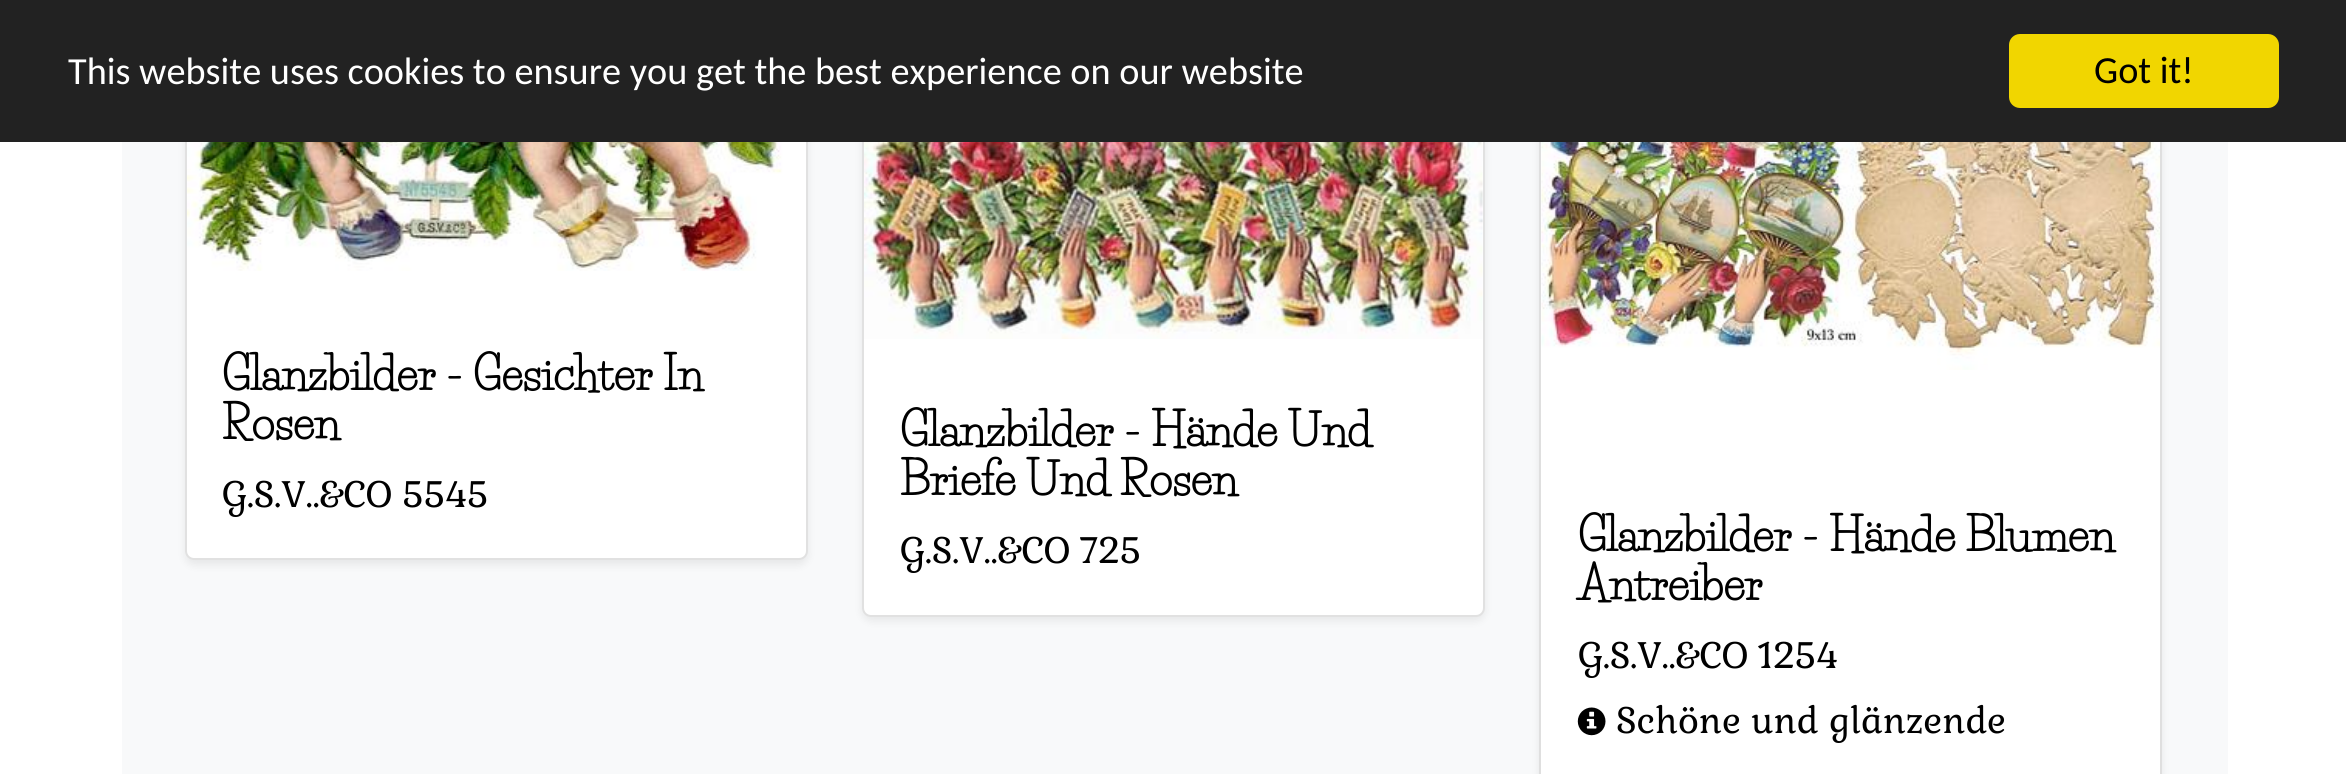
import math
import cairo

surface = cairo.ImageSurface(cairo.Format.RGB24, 2346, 774)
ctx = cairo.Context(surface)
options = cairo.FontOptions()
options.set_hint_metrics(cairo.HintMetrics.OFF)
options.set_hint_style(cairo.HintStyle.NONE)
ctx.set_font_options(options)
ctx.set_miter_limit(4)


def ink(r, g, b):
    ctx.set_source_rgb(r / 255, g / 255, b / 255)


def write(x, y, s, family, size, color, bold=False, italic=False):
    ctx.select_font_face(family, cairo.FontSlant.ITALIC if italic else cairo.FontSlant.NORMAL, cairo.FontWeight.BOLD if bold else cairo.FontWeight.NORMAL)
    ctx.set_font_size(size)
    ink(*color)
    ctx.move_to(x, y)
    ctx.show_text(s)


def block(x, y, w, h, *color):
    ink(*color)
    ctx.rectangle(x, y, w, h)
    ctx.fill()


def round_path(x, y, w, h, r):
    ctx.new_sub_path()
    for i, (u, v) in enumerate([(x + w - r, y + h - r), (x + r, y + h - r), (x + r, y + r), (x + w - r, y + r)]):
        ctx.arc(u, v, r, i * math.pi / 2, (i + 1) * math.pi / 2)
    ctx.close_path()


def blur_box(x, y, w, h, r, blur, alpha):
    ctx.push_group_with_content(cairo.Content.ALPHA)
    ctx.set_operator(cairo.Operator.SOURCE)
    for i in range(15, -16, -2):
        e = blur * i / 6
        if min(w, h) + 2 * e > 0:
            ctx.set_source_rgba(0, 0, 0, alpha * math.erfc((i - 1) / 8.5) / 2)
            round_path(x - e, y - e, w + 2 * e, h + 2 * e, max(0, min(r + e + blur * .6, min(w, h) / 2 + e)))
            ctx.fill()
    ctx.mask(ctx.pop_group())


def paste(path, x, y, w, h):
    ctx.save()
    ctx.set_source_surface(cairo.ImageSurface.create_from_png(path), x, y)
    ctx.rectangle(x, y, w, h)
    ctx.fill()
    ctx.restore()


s1 = dict(family="Carlito", size=38.25, color=(255, 255, 255))
s2 = dict(family="Carlito", size=38.25, color=(0, 0, 0))
s3 = dict(family="Life Savers", size=45, color=(0, 0, 0), bold=True)
s4 = dict(family="Gabriela", size=36, color=(0, 0, 0))

ink(255, 255, 255)
ctx.paint()
block(122, 142, 2106, 632, 248, 249, 250)
ink(0, 0, 0)
blur_box(185, -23, 623, 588, 9, 4.5, 0.07)
ink(255, 255, 255)
round_path(185, -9, 623, 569, 9)
ctx.fill()
round_path(186, -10, 621, 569, 8)
ctx.set_source_rgba(0, 0, 0, 0.12)
ctx.stroke()
ink(0, 0, 0)
blur_box(862, -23, 623, 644, 9, 4.5, 0.07)
ink(255, 255, 255)
round_path(862, -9, 623, 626, 9)
ctx.fill()
round_path(863, -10, 621, 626, 8)
ctx.set_source_rgba(0, 0, 0, 0.12)
ctx.stroke()
ink(0, 0, 0)
blur_box(1539, -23, 623, 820, 9, 4.5, 0.07)
block(1541, 142, 619, 632, 255, 255, 255)
ctx.rectangle(1540, -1, 621, 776)
ink(223, 223, 223)
ctx.stroke()
block(0, 0, 2346, 142, 34, 34, 34)
write(68, 84, "This website uses cookies to ensure you get the best experience on our website", **s1)
ink(241, 214, 0)
round_path(2009, 34, 270, 74, 11)
ctx.fill()
write(2094, 83, "Got it!", **s2)
paste("pic1.png", 187, 142, 618, 129)
write(222, 390, "Glanzbilder - Gesichter In", **s3)
write(222, 439, "Rosen", **s3)
write(222, 507, "G.S.V..&CO 5545", **s4)
paste("pic2.png", 864, 142, 619, 197)
write(900, 446, "Glanzbilder - Hände Und", **s3)
write(900, 495, "Briefe Und Rosen", **s3)
write(900, 563, "G.S.V..&CO 725", **s4)
paste("pic3.png", 1541, 142, 619, 228)
write(1578, 551, "Glanzbilder - Hände Blumen", **s3)
write(1578, 600, "Antreiber", **s3)
write(1578, 668, "G.S.V..&CO 1254", **s4)
paste("pic4.png", 1577, 707, 29, 29)
write(1616, 733, "Schöne und glänzende", **s4)
surface.write_to_png("screenshot.png")
